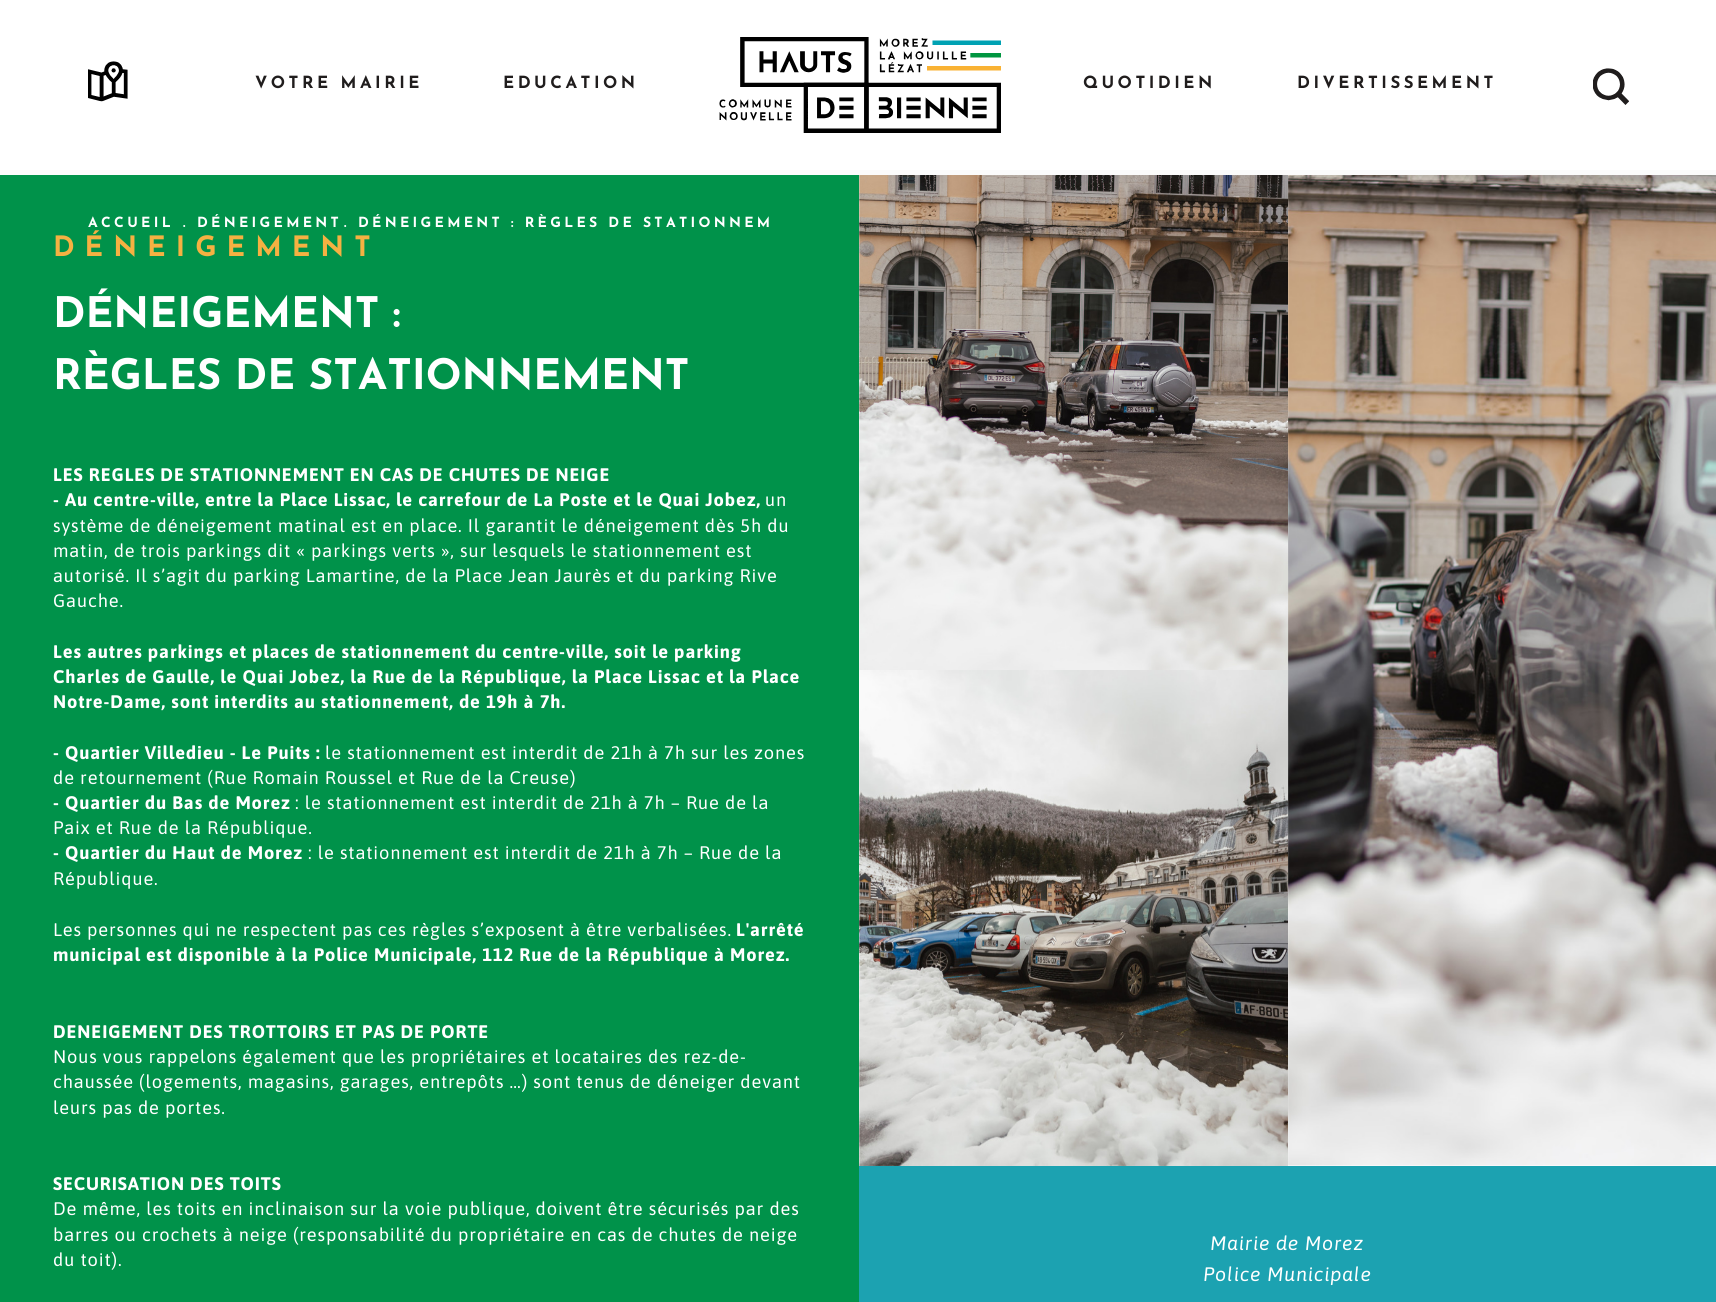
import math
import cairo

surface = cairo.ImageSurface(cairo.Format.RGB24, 1716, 1302)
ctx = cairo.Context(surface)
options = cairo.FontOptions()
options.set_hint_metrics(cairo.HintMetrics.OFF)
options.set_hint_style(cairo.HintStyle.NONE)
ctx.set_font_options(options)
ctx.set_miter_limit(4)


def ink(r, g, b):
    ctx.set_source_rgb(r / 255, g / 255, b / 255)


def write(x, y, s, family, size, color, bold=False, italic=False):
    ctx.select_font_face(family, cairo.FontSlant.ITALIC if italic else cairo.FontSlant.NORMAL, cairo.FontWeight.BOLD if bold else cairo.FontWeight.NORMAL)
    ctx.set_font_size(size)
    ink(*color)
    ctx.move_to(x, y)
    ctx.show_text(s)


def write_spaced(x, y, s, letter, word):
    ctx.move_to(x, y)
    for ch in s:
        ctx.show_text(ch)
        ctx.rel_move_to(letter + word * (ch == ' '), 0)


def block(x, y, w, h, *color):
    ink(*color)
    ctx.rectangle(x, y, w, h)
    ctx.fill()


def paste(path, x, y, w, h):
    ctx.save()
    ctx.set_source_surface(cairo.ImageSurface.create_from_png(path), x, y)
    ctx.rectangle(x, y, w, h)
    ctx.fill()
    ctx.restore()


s1 = dict(family="Josefin Sans", size=42, color=(255, 255, 255), bold=True)

ink(255, 255, 255)
ctx.paint()
block(0, 170, 1716, 5, 251, 251, 251)
paste("pic1.png", 88, 61, 40, 41)
paste("pic2.png", 719, 37, 282, 96)
paste("pic3.png", 1593, 68, 36, 37)
ctx.select_font_face("Josefin Sans", cairo.FontSlant.NORMAL, cairo.FontWeight.BOLD)
ctx.set_font_size(16.75)
ink(32, 29, 29)
write_spaced(255, 88, "VOTRE MAIRIE", 3.5, 0)
write_spaced(503, 88, "EDUCATION", 3.5, 0)
write_spaced(1083, 88, "QUOTIDIEN", 3.5, 0)
write_spaced(1297, 88, "DIVERTISSEMENT", 3.5, 0)
block(0, 175, 859, 1127, 0, 146, 74)
ctx.set_font_size(14)
ink(255, 255, 255)
write_spaced(88, 227, "ACCUEIL", 3.3, 0)
write_spaced(183, 227, ".", 3.3, 0)
write_spaced(197, 227, "DÉNEIGEMENT", 3.3, 0)
write_spaced(344, 227, ".", 3.3, 0)
write_spaced(358, 227, "DÉNEIGEMENT : RÈGLES DE STATIONNEM", 3.3, 0)
ctx.set_font_size(28)
ink(245, 177, 66)
write_spaced(53, 256, "DÉNEIGEMENT", 10, 0)
write(53, 327, "DÉNEIGEMENT :", **s1)
write(53, 389, "RÈGLES DE STATIONNEMENT", **s1)
ctx.select_font_face("Asap", cairo.FontSlant.NORMAL, cairo.FontWeight.BOLD)
ctx.set_font_size(18.2)
write_spaced(53, 481, "LES REGLES DE STATIONNEMENT EN CAS DE CHUTES DE NEIGE", 0.88, 0)
write_spaced(53, 506, "- Au centre-ville, entre la Place Lissac, le carrefour de La Poste et le Quai Jobez,", 0.88, 0)
ctx.select_font_face("Asap")
write_spaced(765, 506, "un", 0.88, 0)
write_spaced(53, 532, "système de déneigement matinal est en place. Il garantit le déneigement dès 5h du", 0.88, 0)
write_spaced(53, 557, "matin, de trois parkings dit « parkings verts », sur lesquels le stationnement est", 0.88, 0)
write_spaced(53, 582, "autorisé. Il s’agit du parking Lamartine, de la Place Jean Jaurès et du parking Rive", 0.88, 0)
write_spaced(53, 607, "Gauche.", 0.88, 0)
ctx.select_font_face("Asap", cairo.FontSlant.NORMAL, cairo.FontWeight.BOLD)
write_spaced(53, 658, "Les autres parkings et places de stationnement du centre-ville, soit le parking", 0.88, 0)
write_spaced(53, 683, "Charles de Gaulle, le Quai Jobez, la Rue de la République, la Place Lissac et la Place", 0.88, 0)
write_spaced(53, 708, "Notre-Dame, sont interdits au stationnement, de 19h à 7h.", 0.88, 0)
write_spaced(53, 759, "- Quartier Villedieu - Le Puits :", 0.88, 0)
ctx.select_font_face("Asap")
write_spaced(325, 759, "le stationnement est interdit de 21h à 7h sur les zones", 0.88, 0)
write_spaced(53, 784, "de retournement (Rue Romain Roussel et Rue de la Creuse)", 0.88, 0)
ctx.select_font_face("Asap", cairo.FontSlant.NORMAL, cairo.FontWeight.BOLD)
write_spaced(53, 809, "- Quartier du Bas de Morez", 0.88, 0)
ctx.select_font_face("Asap")
write_spaced(295, 809, ": le stationnement est interdit de 21h à 7h – Rue de la", 0.88, 0)
write_spaced(53, 834, "Paix et Rue de la République.", 0.88, 0)
ctx.select_font_face("Asap", cairo.FontSlant.NORMAL, cairo.FontWeight.BOLD)
write_spaced(53, 859, "- Quartier du Haut de Morez", 0.88, 0)
ctx.select_font_face("Asap")
write_spaced(308, 859, ": le stationnement est interdit de 21h à 7h – Rue de la", 0.88, 0)
write_spaced(53, 885, "République.", 0.88, 0)
write_spaced(53, 936, "Les personnes qui ne respectent pas ces règles s’exposent à être verbalisées.", 0.88, 0)
ctx.select_font_face("Asap", cairo.FontSlant.NORMAL, cairo.FontWeight.BOLD)
write_spaced(736, 936, "L'arrêté", 0.88, 0)
write_spaced(53, 961, "municipal est disponible à la Police Municipale, 112 Rue de la République à Morez.", 0.88, 0)
write_spaced(53, 1038, "DENEIGEMENT DES TROTTOIRS ET PAS DE PORTE", 0.88, 0)
ctx.select_font_face("Asap")
write_spaced(53, 1063, "Nous vous rappelons également que les propriétaires et locataires des rez-de-", 0.88, 0)
write_spaced(53, 1088, "chaussée (logements, magasins, garages, entrepôts …) sont tenus de déneiger devant", 0.88, 0)
write_spaced(53, 1114, "leurs pas de portes.", 0.88, 0)
ctx.select_font_face("Asap", cairo.FontSlant.NORMAL, cairo.FontWeight.BOLD)
write_spaced(53, 1190, "SECURISATION DES TOITS", 0.88, 0)
ctx.select_font_face("Asap")
write_spaced(53, 1215, "De même, les toits en inclinaison sur la voie publique, doivent être sécurisés par des", 0.88, 0)
write_spaced(53, 1241, "barres ou crochets à neige (responsabilité du propriétaire en cas de chutes de neige", 0.88, 0)
write_spaced(53, 1266, "du toit).", 0.88, 0)
paste("pic4.png", 859, 175, 429, 496)
paste("pic5.png", 859, 670, 429, 496)
paste("pic6.png", 1288, 175, 428, 991)
block(859, 1166, 857, 136, 28, 162, 177)
ctx.select_font_face("Asap", cairo.FontSlant.ITALIC)
ctx.set_font_size(19.5)
ink(255, 255, 255)
write_spaced(1210, 1250, "Mairie de Morez", 0.88, 0)
write_spaced(1203, 1281, "Police Municipale", 0.88, 0)
surface.write_to_png("screenshot.png")
